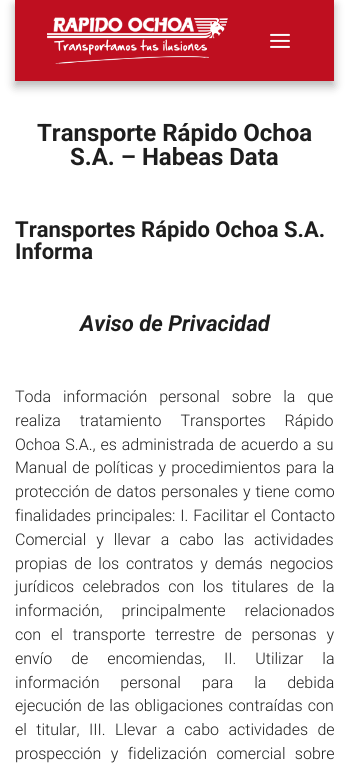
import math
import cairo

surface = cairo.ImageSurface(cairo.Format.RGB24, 349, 772)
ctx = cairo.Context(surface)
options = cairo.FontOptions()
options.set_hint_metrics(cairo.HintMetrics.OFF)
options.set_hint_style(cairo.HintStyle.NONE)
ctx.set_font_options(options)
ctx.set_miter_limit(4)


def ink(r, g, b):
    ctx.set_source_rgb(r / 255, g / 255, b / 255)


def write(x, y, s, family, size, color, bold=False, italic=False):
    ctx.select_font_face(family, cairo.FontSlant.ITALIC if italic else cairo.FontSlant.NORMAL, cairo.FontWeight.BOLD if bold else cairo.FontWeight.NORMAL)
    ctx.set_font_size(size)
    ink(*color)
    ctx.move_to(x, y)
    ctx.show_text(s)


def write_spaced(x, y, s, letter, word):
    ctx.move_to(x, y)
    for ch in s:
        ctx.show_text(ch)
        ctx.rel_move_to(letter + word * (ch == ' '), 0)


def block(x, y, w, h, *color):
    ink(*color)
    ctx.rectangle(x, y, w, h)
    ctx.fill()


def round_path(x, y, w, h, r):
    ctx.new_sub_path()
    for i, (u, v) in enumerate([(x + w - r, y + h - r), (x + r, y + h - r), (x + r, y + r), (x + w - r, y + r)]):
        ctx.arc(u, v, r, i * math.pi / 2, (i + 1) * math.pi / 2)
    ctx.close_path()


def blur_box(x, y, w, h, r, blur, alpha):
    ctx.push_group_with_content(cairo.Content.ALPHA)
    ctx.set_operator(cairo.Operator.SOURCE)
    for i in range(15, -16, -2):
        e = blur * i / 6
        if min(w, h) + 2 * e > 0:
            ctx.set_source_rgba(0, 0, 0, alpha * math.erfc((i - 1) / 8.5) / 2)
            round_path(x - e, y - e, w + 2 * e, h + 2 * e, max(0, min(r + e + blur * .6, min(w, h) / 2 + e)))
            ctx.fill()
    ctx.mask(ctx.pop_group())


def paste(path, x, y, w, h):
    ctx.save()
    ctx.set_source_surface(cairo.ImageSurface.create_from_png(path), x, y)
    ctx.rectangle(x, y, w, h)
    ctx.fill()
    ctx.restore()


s1 = dict(family="Roboto", size=24, color=(30, 30, 30), bold=True)
s2 = dict(family="Roboto", size=22, color=(30, 30, 30), bold=True)
s3 = dict(family="Roboto", size=22, color=(30, 30, 30), bold=True, italic=True)

ink(255, 255, 255)
ctx.paint()
ink(0, 0, 0)
blur_box(15, 5, 319, 81, 0, 5, 0.3)
block(15, 0, 319, 81, 191, 15, 32)
paste("pic1.png", 47, 17, 181, 47)
paste("pic2.png", 270, 33, 20, 15)
write(37, 141, "Transporte Rápido Ochoa", **s1)
write(70, 165, "S.A. – Habeas Data", **s1)
write(15, 237, "Transportes Rápido Ochoa S.A.", **s2)
write(15, 259, "Informa", **s2)
write(80, 331, "Aviso de Privacidad", **s3)
ctx.select_font_face("Roboto Light")
ctx.set_font_size(16)
write_spaced(15, 402, "Toda información personal sobre la que", 0, 8)
write_spaced(15, 426, "realiza tratamiento Transportes Rápido", 0, 15)
write_spaced(15, 450, "Ochoa S.A., es administrada de acuerdo a su", 0, 1)
write_spaced(15, 473, "Manual de políticas y procedimientos para la", 0, 1.25)
write_spaced(15, 497, "protección de datos personales y tiene como", 0, 1)
write_spaced(15, 521, "finalidades principales: I. Facilitar el Contacto", 0, 1)
write_spaced(15, 545, "Comercial y llevar a cabo las actividades", 0, 6)
write_spaced(15, 569, "propias de los contratos y demás negocios", 0, 3)
write_spaced(15, 592, "jurídicos celebrados con los titulares de la", 0, 4.5)
write_spaced(15, 616, "información, principalmente relacionados", 0, 15)
write_spaced(15, 640, "con el transporte terrestre de personas y", 0, 6)
write_spaced(15, 664, "envío de encomiendas, II. Utilizar la", 0, 15)
write_spaced(15, 688, "información personal para la debida", 0, 17)
write_spaced(15, 711, "ejecución de las obligaciones contraídas con", 0, 1.25)
write_spaced(15, 735, "el titular, III. Llevar a cabo actividades de", 0, 5.5)
write_spaced(15, 759, "prospección y fidelización comercial sobre", 0, 5.5)
surface.write_to_png("screenshot.png")
